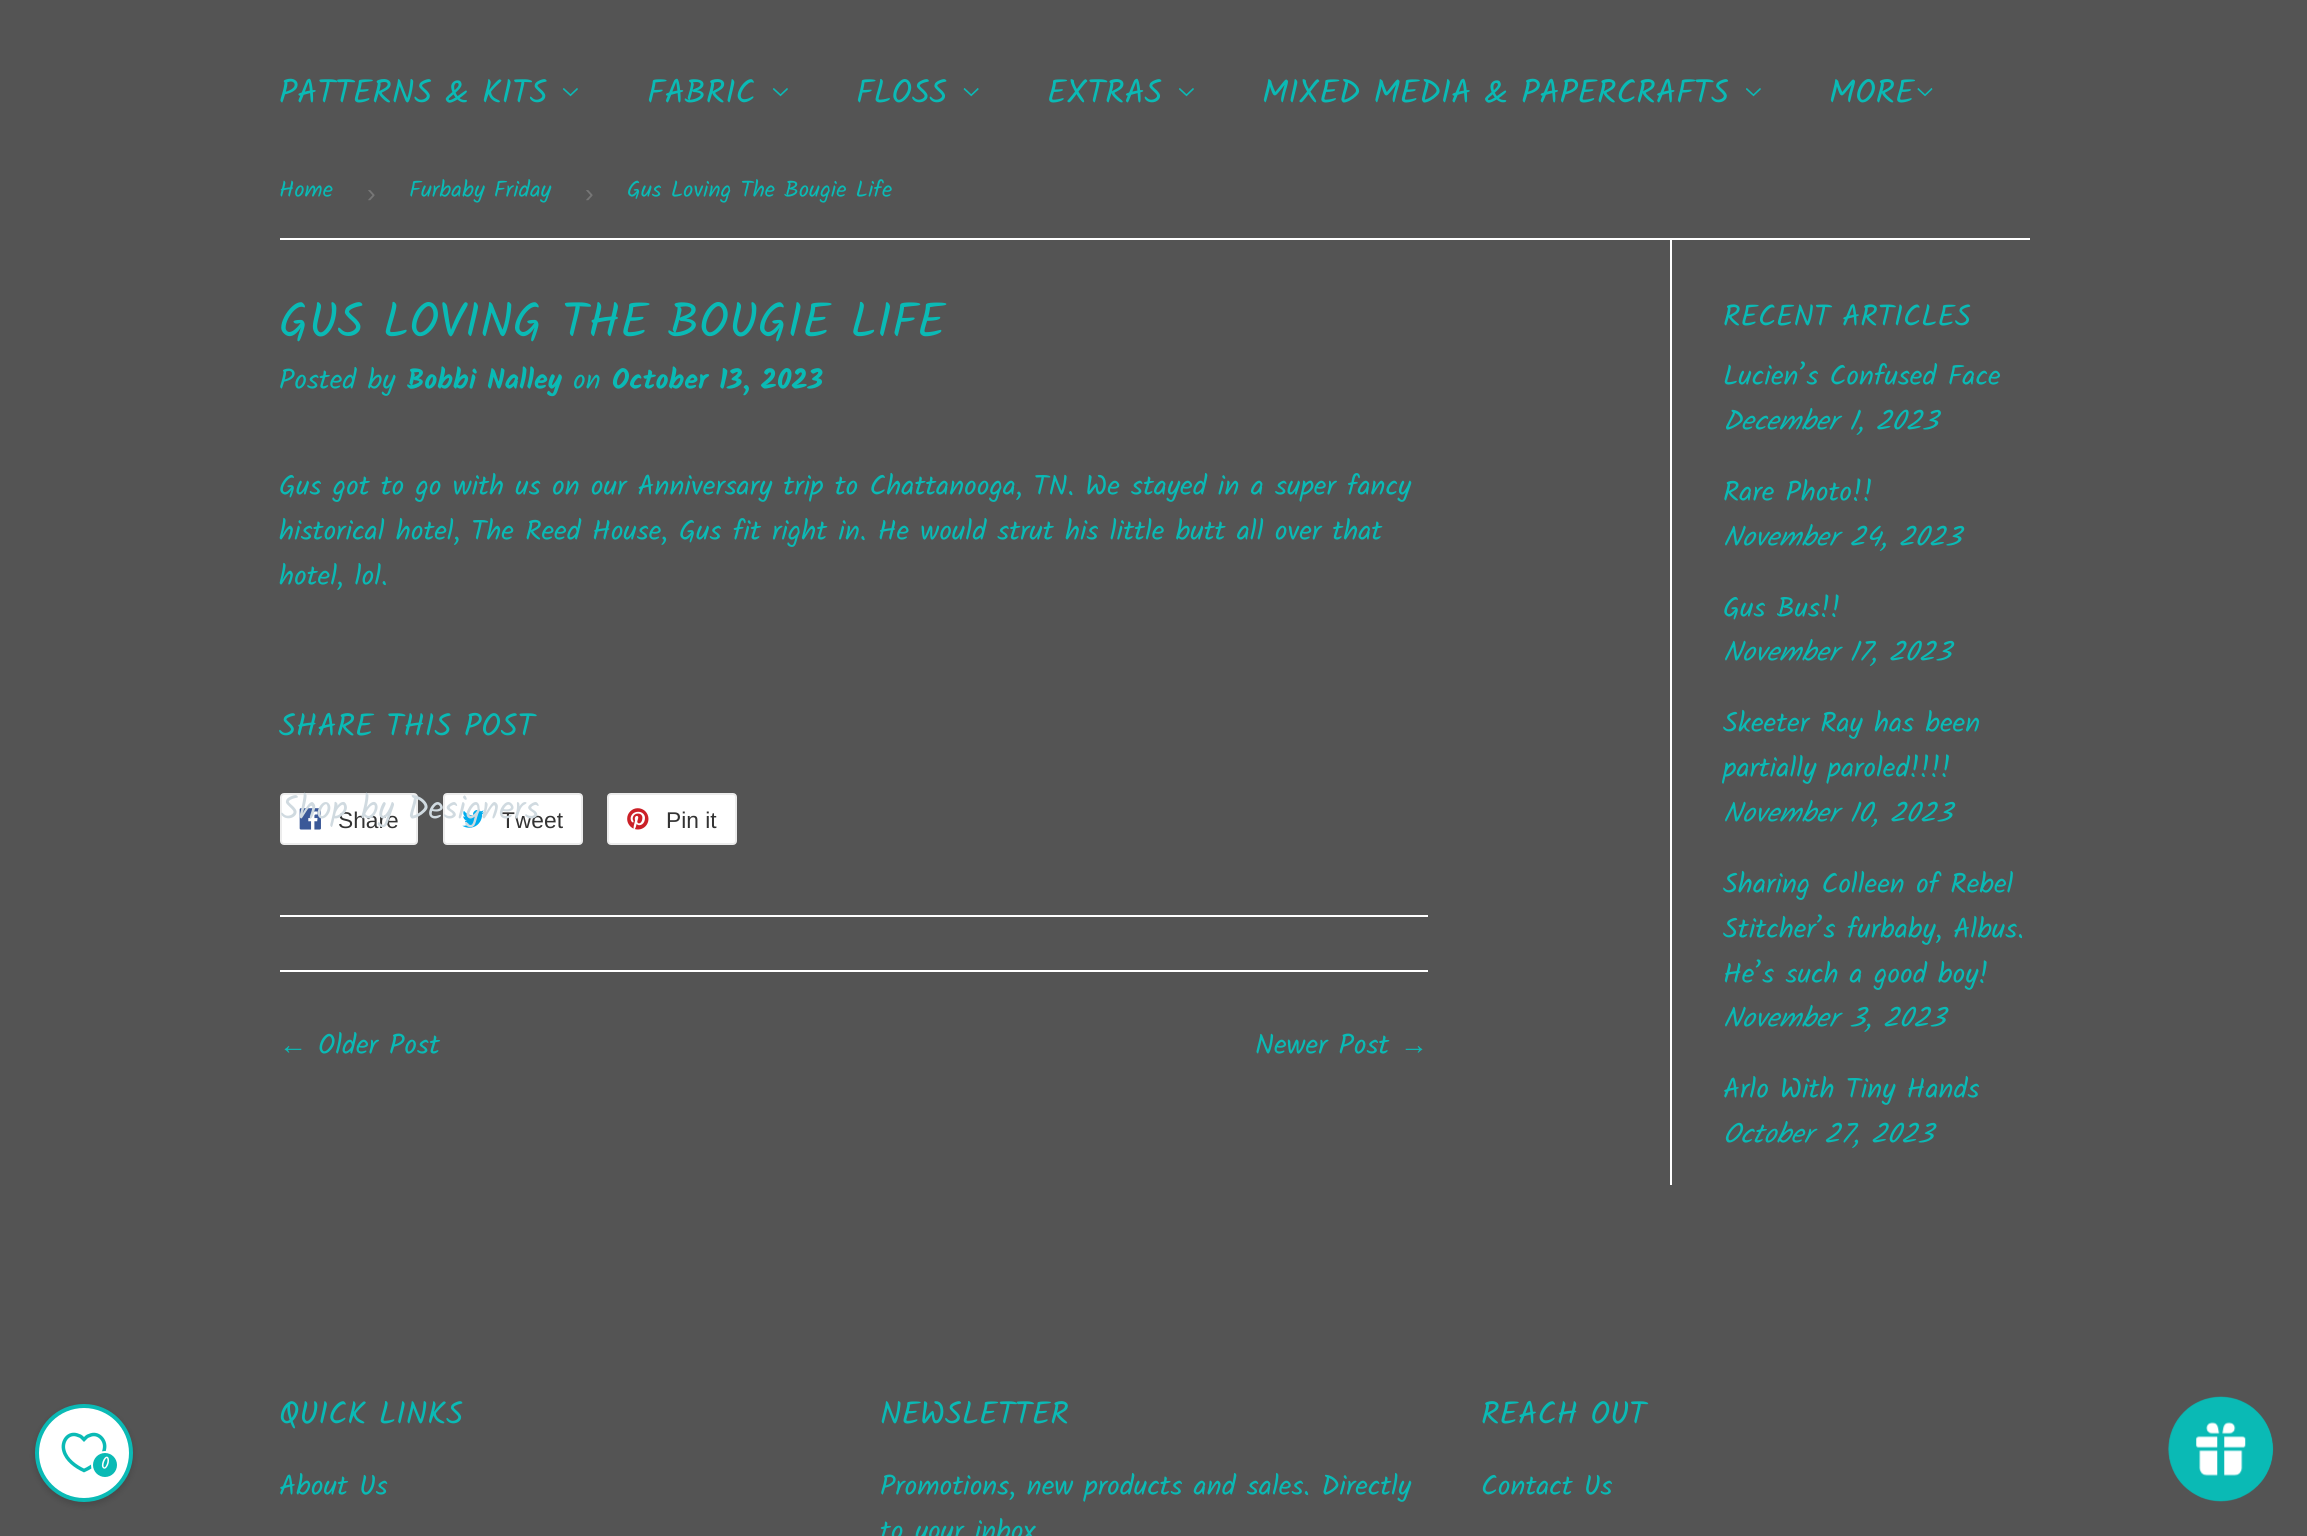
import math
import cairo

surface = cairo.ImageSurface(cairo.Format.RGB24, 2307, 1536)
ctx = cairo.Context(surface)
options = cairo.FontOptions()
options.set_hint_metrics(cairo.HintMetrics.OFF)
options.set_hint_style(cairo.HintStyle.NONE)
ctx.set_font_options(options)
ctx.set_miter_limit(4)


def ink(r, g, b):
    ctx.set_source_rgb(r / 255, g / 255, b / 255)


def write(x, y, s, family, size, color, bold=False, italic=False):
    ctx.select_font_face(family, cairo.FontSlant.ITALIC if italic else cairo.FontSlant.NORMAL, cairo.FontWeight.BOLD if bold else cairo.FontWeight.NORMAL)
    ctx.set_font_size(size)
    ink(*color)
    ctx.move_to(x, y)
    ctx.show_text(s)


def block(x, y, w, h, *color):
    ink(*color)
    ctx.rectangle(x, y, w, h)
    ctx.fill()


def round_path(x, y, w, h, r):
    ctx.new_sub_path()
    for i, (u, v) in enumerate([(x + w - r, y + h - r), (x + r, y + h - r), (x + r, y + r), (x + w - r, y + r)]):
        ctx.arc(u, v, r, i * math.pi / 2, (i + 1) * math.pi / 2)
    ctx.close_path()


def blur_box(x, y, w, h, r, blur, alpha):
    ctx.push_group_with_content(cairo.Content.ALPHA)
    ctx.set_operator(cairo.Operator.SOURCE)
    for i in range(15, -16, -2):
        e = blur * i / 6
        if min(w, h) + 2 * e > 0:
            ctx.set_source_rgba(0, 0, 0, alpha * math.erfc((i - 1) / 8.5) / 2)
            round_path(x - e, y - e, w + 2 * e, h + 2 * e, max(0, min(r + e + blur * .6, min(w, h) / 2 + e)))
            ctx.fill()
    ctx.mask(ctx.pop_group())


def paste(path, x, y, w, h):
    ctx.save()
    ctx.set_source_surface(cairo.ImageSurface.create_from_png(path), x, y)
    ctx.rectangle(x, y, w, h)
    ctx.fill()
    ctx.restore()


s1 = dict(family="Kalam", size=33.25, color=(10, 186, 181))
s2 = dict(family="Liberation Sans", size=22.75, color=(51, 51, 51))
s3 = dict(family="Kalam", size=33.25, color=(208, 218, 224))
s4 = dict(family="Kalam", size=22.75, color=(10, 186, 181))
s5 = dict(family="Liberation Sans", size=26, color=(118, 118, 118))
s6 = dict(family="Kalam", size=48.5, color=(10, 186, 181))
s7 = dict(family="Kalam", size=28, color=(10, 186, 181))
s8 = dict(family="Kalam", size=28, color=(10, 186, 181), bold=True)
s9 = dict(family="Kalam", size=31.75, color=(10, 186, 181))
s10 = dict(family="Liberation Sans", size=28, color=(10, 186, 181))
s11 = dict(family="Kalam", size=30, color=(10, 186, 181))
s12 = dict(family="Kalam", size=28, color=(10, 186, 181), italic=True)
s13 = dict(family="Kalam", size=17, color=(255, 255, 255))

ink(84, 84, 84)
ctx.paint()
write(279, 103, "PATTERNS & KITS", **s1)
paste("pic1.png", 563, 88, 15, 9)
ink(255, 255, 255)
round_path(281, 794, 136, 50, 3)
ctx.fill_preserve()
ink(236, 236, 236)
ctx.stroke()
paste("pic4.png", 299, 808, 22, 22)
write(338, 828, "Share", **s2)
ink(255, 255, 255)
round_path(444, 794, 138, 50, 3)
ctx.fill_preserve()
ink(236, 236, 236)
ctx.stroke()
paste("pic5.png", 462, 810, 23, 18)
write(501, 828, "Tweet", **s2)
write(281, 819, "Shop by Designers", **s3)
write(647, 103, "FABRIC", **s1)
paste("pic1.png", 773, 88, 15, 9)
write(856, 103, "FLOSS", **s1)
paste("pic2.png", 963, 88, 16, 9)
write(1047, 103, "EXTRAS", **s1)
paste("pic1.png", 1179, 88, 15, 9)
write(1262, 103, "MIXED MEDIA & PAPERCRAFTS", **s1)
paste("pic1.png", 1746, 88, 15, 9)
write(1829, 103, "MORE", **s1)
paste("pic3.png", 1917, 88, 16, 9)
block(280, 238, 1750, 2, 255, 255, 255)
write(279, 197, "Home", **s4)
write(367, 202, "›", **s5)
write(409, 197, "Furbaby Friday", **s4)
write(585, 202, "›", **s5)
write(627, 197, "Gus Loving The Bougie Life", **s4)
write(279, 337, "GUS LOVING THE BOUGIE LIFE", **s6)
write(279, 389, "Posted by", **s7)
write(407, 389, "Bobbi Nalley", **s8)
write(573, 389, "on", **s7)
write(612, 389, "October 13, 2023", **s8)
write(279, 495, "Gus got to go with us on our Anniversary trip to Chattanooga, TN. We stayed in a super fancy", **s7)
write(279, 540, "historical hotel, The Reed House, Gus fit right in. He would strut his little butt all over that", **s7)
write(279, 585, "hotel, lol.", **s7)
write(279, 736, "SHARE THIS POST", **s9)
ink(255, 255, 255)
round_path(608, 794, 128, 50, 3)
ctx.fill_preserve()
ink(236, 236, 236)
ctx.stroke()
paste("pic6.png", 627, 808, 22, 22)
write(666, 828, "Pin it", **s2)
block(280, 915, 1148, 2, 255, 255, 255)
block(280, 970, 1148, 2, 255, 255, 255)
write(279, 1054, "←", **s10)
write(318, 1054, "Older Post", **s7)
write(1255, 1054, "Newer Post", **s7)
write(1400, 1054, "→", **s10)
block(1670, 240, 2, 945, 255, 255, 255)
write(1723, 326, "RECENT ARTICLES", **s11)
write(1723, 385, "Lucien’s Confused Face", **s7)
write(1723, 430, "December 1, 2023", **s12)
write(1723, 501, "Rare Photo!!", **s7)
write(1723, 546, "November 24, 2023", **s12)
write(1723, 617, "Gus Bus!!", **s7)
write(1723, 661, "November 17, 2023", **s12)
write(1723, 732, "Skeeter Ray has been", **s7)
write(1723, 777, "partially paroled!!!!", **s7)
write(1723, 822, "November 10, 2023", **s12)
write(1723, 893, "Sharing Colleen of Rebel", **s7)
write(1723, 938, "Stitcher’s furbaby, Albus.", **s7)
write(1723, 983, "He’s such a good boy!", **s7)
write(1723, 1027, "November 3, 2023", **s12)
write(1723, 1098, "Arlo With Tiny Hands", **s7)
write(1723, 1143, "October 27, 2023", **s12)
ink(0, 0, 0)
blur_box(35, 1407, 98, 98, 49, 3.5, 0.15)
ink(255, 255, 255)
ctx.arc(84, 1453, 47, 0, 2 * math.pi)
ctx.fill_preserve()
ink(10, 186, 181)
ctx.set_line_width(4)
ctx.stroke()
ctx.new_path()
ctx.move_to(84, 1470.5)
ctx.curve_to(75.5, 1466.5, 66.5, 1460, 64, 1451)
ctx.curve_to(61, 1441.5, 68.5, 1431, 78.5, 1435.5)
ctx.curve_to(81, 1436, 82.5, 1438, 84, 1439.5)
ctx.curve_to(85.5, 1438, 87, 1436, 89.5, 1435.5)
ctx.curve_to(98, 1431.5, 106, 1440, 104.5, 1448.5)
ctx.curve_to(103, 1459, 93, 1466.5, 84, 1470.5)
ctx.close_path()
ctx.set_line_width(3.5)
ctx.stroke()
ctx.arc(105, 1465, 13, 0, 2 * math.pi)
ctx.fill_preserve()
ink(255, 255, 255)
ctx.set_line_width(2)
ctx.stroke()
write(101, 1469, "0", **s13)
write(279, 1424, "QUICK LINKS", **s9)
write(279, 1495, "About Us", **s7)
write(880, 1424, "NEWSLETTER", **s9)
write(880, 1495, "Promotions, new products and sales. Directly", **s7)
write(880, 1540, "to your inbox.", **s7)
write(1481, 1424, "REACH OUT", **s9)
write(1481, 1495, "Contact Us", **s7)
paste("pic7.png", 2168, 1396, 106, 106)
surface.write_to_png("screenshot.png")
